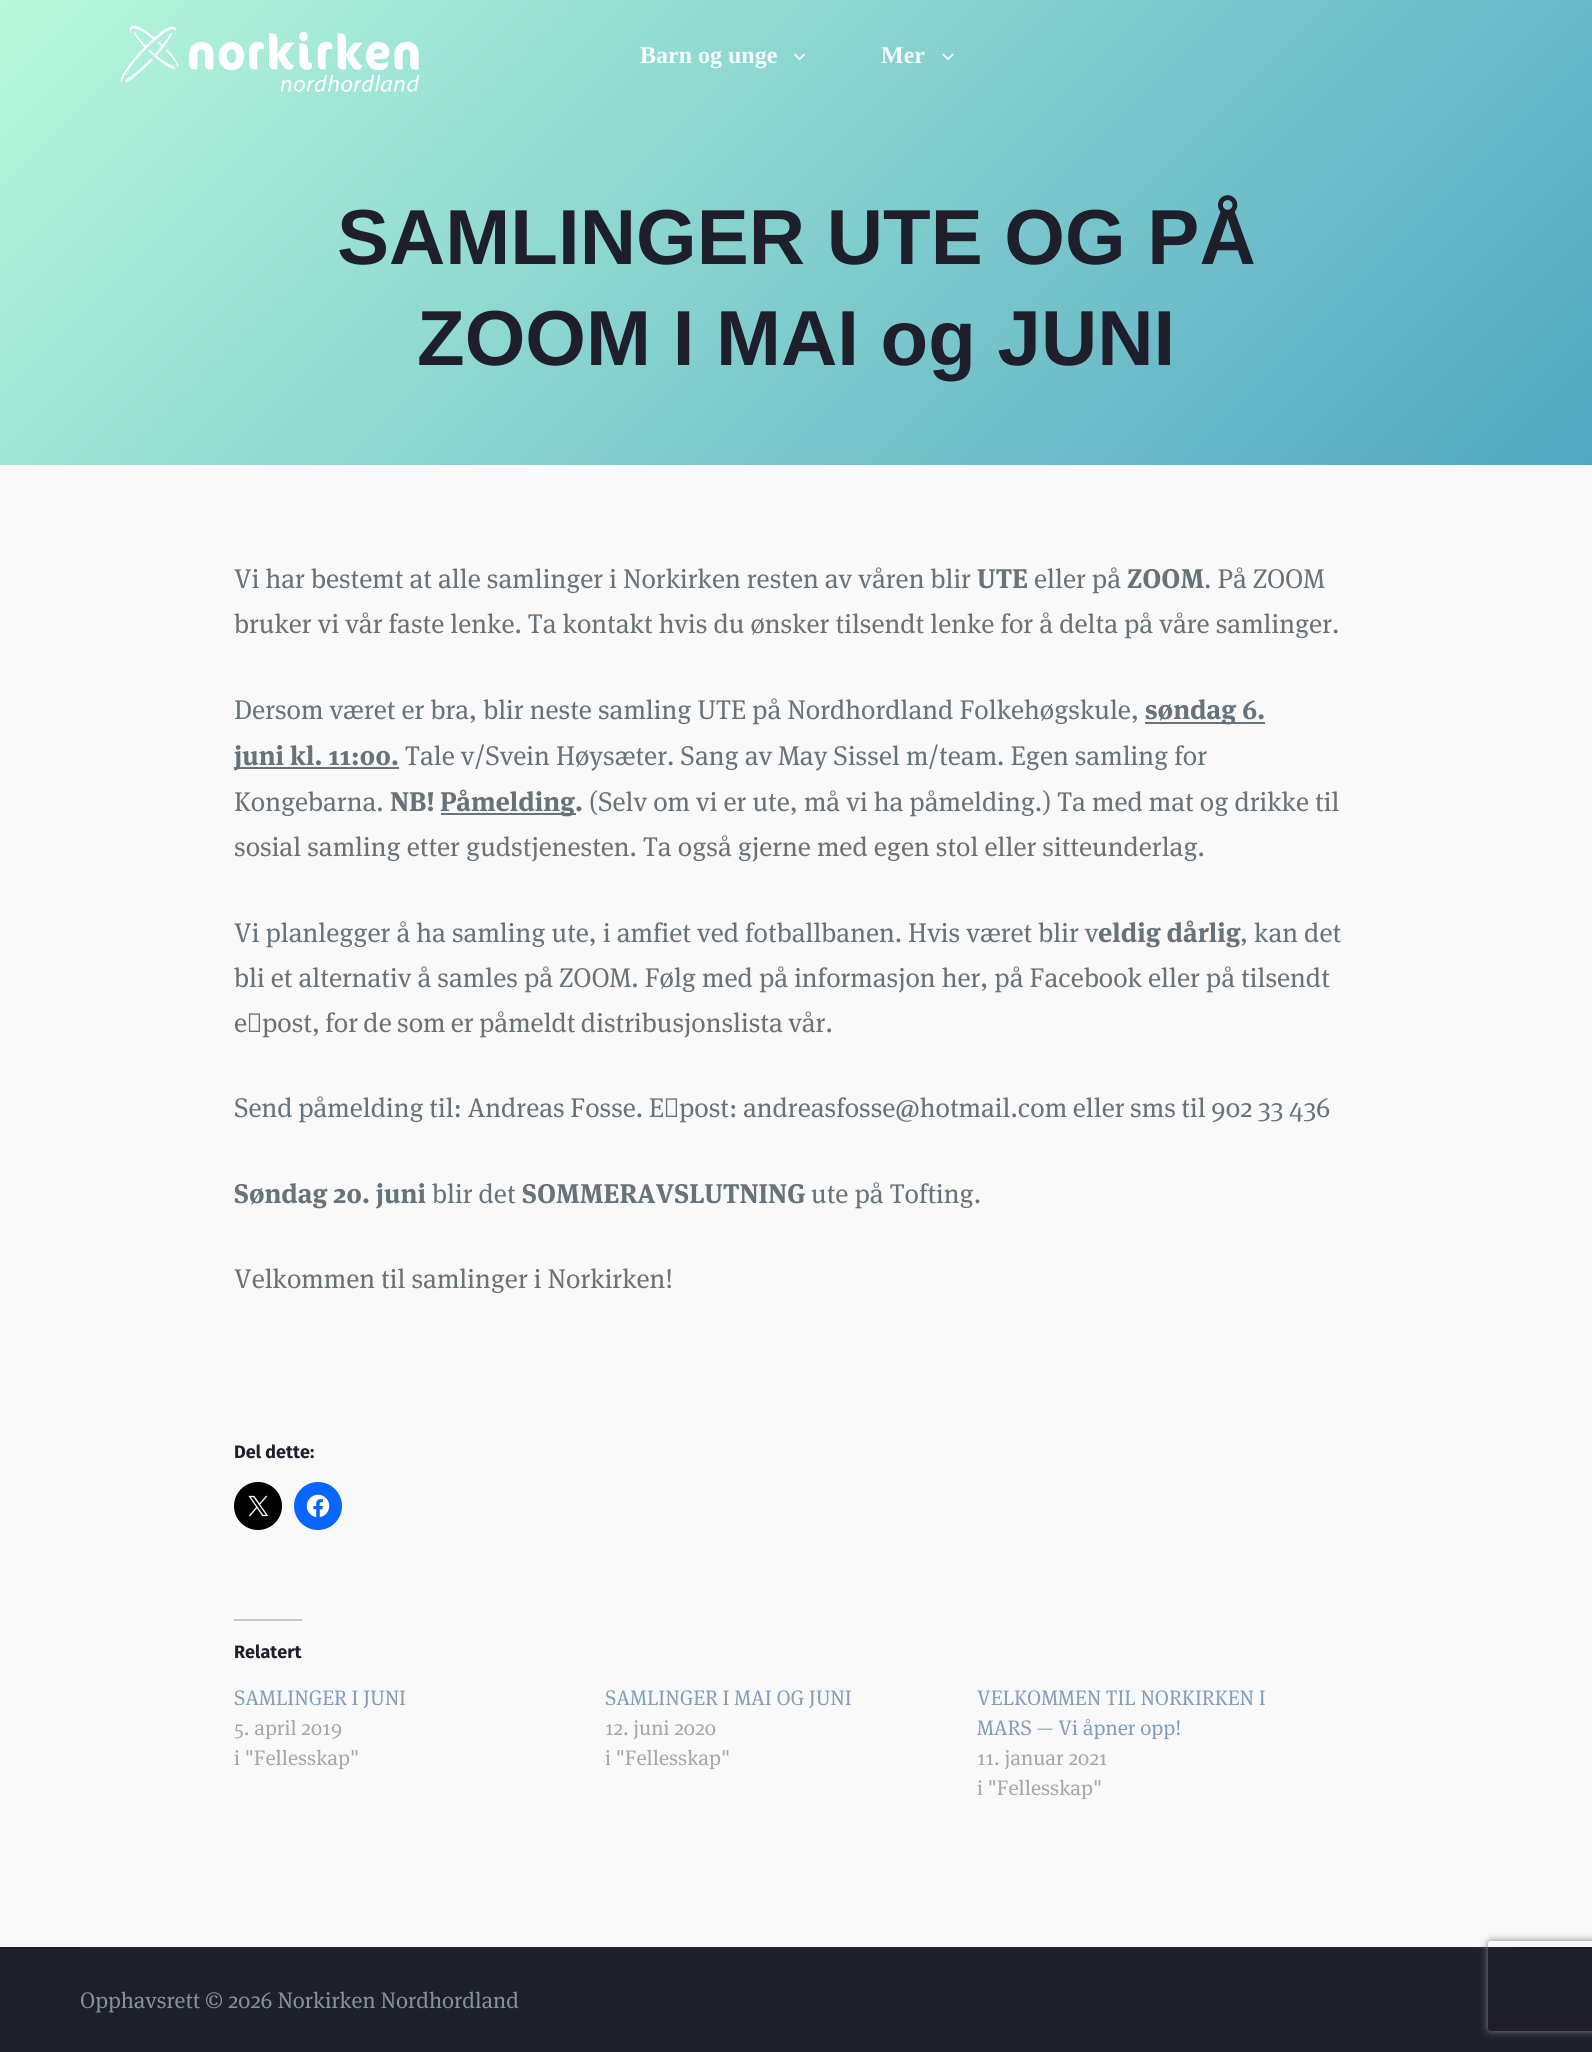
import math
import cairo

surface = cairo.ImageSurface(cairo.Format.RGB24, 1592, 2052)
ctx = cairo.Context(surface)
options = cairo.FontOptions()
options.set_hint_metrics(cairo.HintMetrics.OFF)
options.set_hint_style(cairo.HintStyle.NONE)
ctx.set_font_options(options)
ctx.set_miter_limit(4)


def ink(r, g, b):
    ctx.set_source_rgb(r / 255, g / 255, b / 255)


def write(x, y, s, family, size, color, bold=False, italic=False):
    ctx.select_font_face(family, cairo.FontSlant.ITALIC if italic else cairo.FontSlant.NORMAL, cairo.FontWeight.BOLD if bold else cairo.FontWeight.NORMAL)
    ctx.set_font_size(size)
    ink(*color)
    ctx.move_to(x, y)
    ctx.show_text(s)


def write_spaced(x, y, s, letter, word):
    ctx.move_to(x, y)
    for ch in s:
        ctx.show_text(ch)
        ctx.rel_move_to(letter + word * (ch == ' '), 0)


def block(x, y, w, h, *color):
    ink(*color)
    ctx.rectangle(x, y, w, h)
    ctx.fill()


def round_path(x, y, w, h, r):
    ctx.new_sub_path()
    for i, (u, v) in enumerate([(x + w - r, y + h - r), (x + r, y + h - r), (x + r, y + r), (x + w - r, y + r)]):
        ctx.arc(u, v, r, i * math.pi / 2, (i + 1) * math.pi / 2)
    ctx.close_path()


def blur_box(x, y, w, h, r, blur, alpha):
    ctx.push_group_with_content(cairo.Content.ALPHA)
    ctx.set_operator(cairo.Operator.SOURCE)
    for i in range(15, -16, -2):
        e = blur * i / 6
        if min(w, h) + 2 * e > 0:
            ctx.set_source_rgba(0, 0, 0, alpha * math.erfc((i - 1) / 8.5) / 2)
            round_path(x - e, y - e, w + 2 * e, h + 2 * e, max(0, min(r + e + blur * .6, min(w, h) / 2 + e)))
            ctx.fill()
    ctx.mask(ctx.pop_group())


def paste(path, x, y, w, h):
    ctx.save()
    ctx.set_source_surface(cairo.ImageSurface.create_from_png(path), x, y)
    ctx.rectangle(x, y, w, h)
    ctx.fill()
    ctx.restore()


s1 = dict(family="Liberation Serif", size=24, color=(244, 251, 250), bold=True)
s2 = dict(family="Liberation Sans", size=78, color=(31, 31, 43), bold=True)
s3 = dict(family="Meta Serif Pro", size=27, color=(104, 114, 121))
s4 = dict(family="Meta Serif Pro", size=27, color=(104, 114, 121), bold=True)
s5 = dict(family="Fira Sans", size=18, color=(31, 31, 43), bold=True)
s6 = dict(family="Meta Serif Pro", size=21, color=(130, 158, 185))
s7 = dict(family="Meta Serif Pro", size=21, color=(162, 168, 172))
s8 = dict(family="Meta Serif Pro", size=22.5, color=(134, 145, 154))

ink(249, 249, 249)
ctx.paint()
gradient = cairo.LinearGradient(282, -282, 1311, 747)
gradient.add_color_stop_rgba(0, 0.718, 0.973, 0.859, 1)
gradient.add_color_stop_rgba(1, 0.314, 0.655, 0.761, 1)
ctx.set_source(gradient)
ctx.rectangle(0, 0, 1592, 465)
ctx.fill()
paste("pic1.png", 121, 25, 299, 67)
write(640, 63, "Barn og unge", **s1)
paste("pic2.png", 794, 53, 12, 8)
write(881, 63, "Mer", **s1)
paste("pic3.png", 942, 53, 12, 8)
write(337, 264, "SAMLINGER UTE OG PÅ", **s2)
write(417, 365, "ZOOM I MAI og JUNI", **s2)
write(234, 588, "Vi har bestemt at alle samlinger i Norkirken resten av våren blir", **s3)
write(977, 588, "UTE", **s4)
write(1034, 588, "eller på", **s3)
write(1127, 588, "ZOOM", **s4)
write(1204, 588, ". På ZOOM", **s3)
write(234, 633, "bruker vi vår faste lenke. Ta kontakt hvis du ønsker tilsendt lenke for å delta på våre samlinger.", **s3)
write(234, 719, "Dersom været er bra, blir neste samling UTE på Nordhordland Folkehøgskule,", **s3)
block(1145, 722, 120, 2, 104, 114, 121)
write(1145, 719, "søndag 6.", **s4)
block(234, 767, 165, 2, 104, 114, 121)
write(234, 765, "juni kl. 11:00.", **s4)
write(405, 765, "Tale v/Svein Høysæter. Sang av May Sissel m/team. Egen samling for", **s3)
write(234, 811, "Kongebarna.", **s3)
write(390, 811, "NB!", **s4)
block(441, 813, 135, 2, 104, 114, 121)
write(440, 811, "Påmelding.", **s4)
write(589, 811, "(Selv om vi er ute, må vi ha påmelding.) Ta med mat og drikke til", **s3)
write(234, 856, "sosial samling etter gudstjenesten. Ta også gjerne med egen stol eller sitteunderlag.", **s3)
write(234, 942, "Vi planlegger å ha samling ute, i amfiet ved fotballbanen. Hvis været blir v", **s3)
write(1098, 942, "eldig dårlig", **s4)
write(1240, 942, ", kan det", **s3)
write(234, 987, "bli et alternativ å samles på ZOOM. Følg med på informasjon her, på Facebook eller på tilsendt", **s3)
write_spaced(234, 1032, "e‑post, for de som er påmeldt distribusjonslista vår.", 0, -0.75)
write_spaced(234, 1117, "Send påmelding til: Andreas Fosse. E‑post: andreasfosse@hotmail.com eller sms til 902 33 436", 0, -0.5)
write(234, 1203, "Søndag 20. juni", **s4)
write(432, 1203, "blir det", **s3)
write(522, 1203, "SOMMERAVSLUTNING", **s4)
write(811, 1203, "ute på Tofting.", **s3)
write(234, 1288, "Velkommen til samlinger i Norkirken!", **s3)
write(234, 1458, "Del dette:", **s5)
ink(0, 0, 0)
ctx.new_path()
ctx.arc(258, 1506, 24, 0, 2 * math.pi)
ctx.fill()
paste("pic4.png", 248, 1495, 21, 22)
ink(8, 102, 255)
ctx.arc(318, 1506, 24, 0, 2 * math.pi)
ctx.fill()
paste("pic5.png", 306, 1494, 24, 23)
block(234, 1619, 68, 2, 199, 199, 199)
write(234, 1658, "Relatert", **s5)
write(234, 1705, "SAMLINGER I JUNI", **s6)
write(234, 1735, "5. april 2019", **s7)
write(234, 1765, "i \"Fellesskap\"", **s7)
write(605, 1705, "SAMLINGER I MAI OG JUNI", **s6)
write(605, 1735, "12. juni 2020", **s7)
write(605, 1765, "i \"Fellesskap\"", **s7)
write(977, 1705, "VELKOMMEN TIL NORKIRKEN I", **s6)
write(977, 1735, "MARS — Vi åpner opp!", **s6)
write(977, 1765, "11. januar 2021", **s7)
write(977, 1795, "i \"Fellesskap\"", **s7)
block(0, 1947, 1592, 105, 31, 31, 43)
block(80, 1947, 1434, 2, 32, 40, 46)
write(80, 2008, "Opphavsrett © 2026 Norkirken Nordhordland", **s8)
ctx.save()
ctx.set_fill_rule(cairo.FillRule.EVEN_ODD)
ctx.new_path()
ctx.move_to(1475, 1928)
ctx.line_to(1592, 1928)
ctx.line_to(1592, 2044)
ctx.line_to(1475, 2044)
ctx.close_path()
ctx.move_to(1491, 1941)
ctx.line_to(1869, 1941)
ctx.curve_to(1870.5, 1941, 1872, 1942.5, 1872, 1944)
ctx.line_to(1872, 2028)
ctx.curve_to(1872, 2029.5, 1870.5, 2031, 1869, 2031)
ctx.line_to(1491, 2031)
ctx.curve_to(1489.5, 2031, 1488, 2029.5, 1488, 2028)
ctx.line_to(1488, 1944)
ctx.curve_to(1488, 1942.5, 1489.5, 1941, 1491, 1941)
ctx.close_path()
ctx.clip()
ink(128, 128, 128)
blur_box(1488, 1941, 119, 90, 3, 4, 1)
ctx.restore()
surface.write_to_png("screenshot.png")
